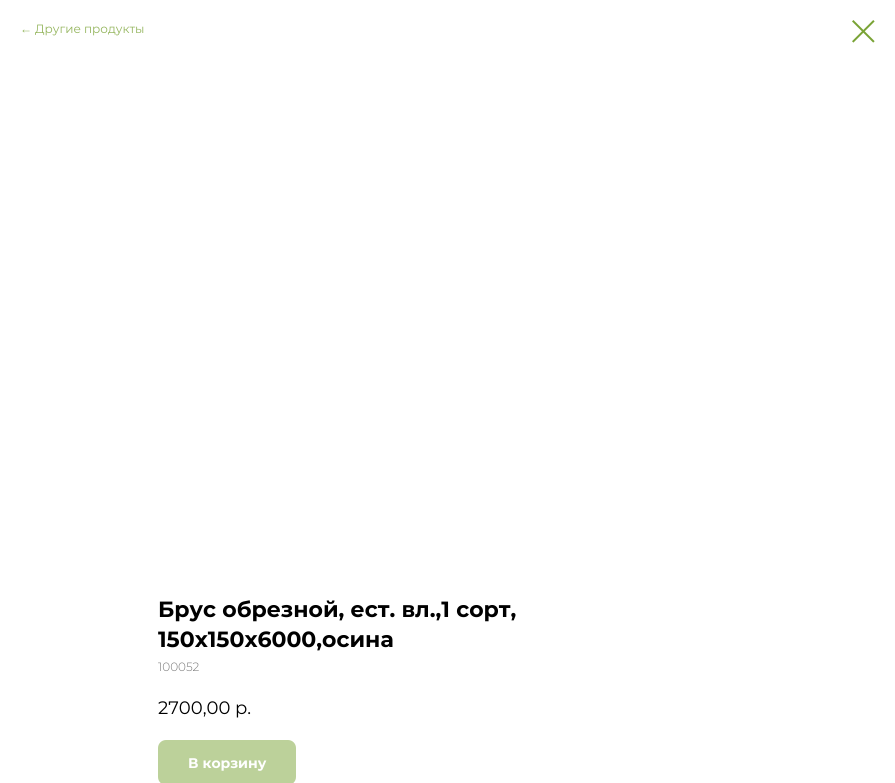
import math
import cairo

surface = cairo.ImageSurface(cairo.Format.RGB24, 895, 783)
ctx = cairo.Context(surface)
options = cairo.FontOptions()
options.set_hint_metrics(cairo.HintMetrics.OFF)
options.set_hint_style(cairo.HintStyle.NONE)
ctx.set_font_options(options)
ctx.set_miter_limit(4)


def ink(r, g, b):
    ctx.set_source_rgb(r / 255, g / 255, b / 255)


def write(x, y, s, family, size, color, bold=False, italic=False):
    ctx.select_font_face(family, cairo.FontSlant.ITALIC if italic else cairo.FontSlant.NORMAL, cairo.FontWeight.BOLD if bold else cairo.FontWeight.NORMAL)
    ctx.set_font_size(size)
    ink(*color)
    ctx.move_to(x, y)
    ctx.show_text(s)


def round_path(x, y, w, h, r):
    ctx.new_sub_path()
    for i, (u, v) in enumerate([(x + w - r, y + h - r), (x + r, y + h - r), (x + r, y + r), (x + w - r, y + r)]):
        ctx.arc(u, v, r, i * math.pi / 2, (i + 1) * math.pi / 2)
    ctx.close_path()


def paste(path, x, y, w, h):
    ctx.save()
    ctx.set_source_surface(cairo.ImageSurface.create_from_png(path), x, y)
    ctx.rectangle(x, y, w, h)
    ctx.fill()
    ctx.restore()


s1 = dict(family="Liberation Sans", size=12, color=(148, 181, 93))
s2 = dict(family="Montserrat", size=12, color=(148, 181, 93))
s3 = dict(family="Montserrat", size=22, color=(0, 0, 0), bold=True)
s4 = dict(family="Montserrat Light", size=12, color=(119, 119, 119))
s5 = dict(family="Montserrat", size=18, color=(0, 0, 0))
s6 = dict(family="Montserrat", size=14, color=(255, 255, 255), bold=True)

ink(255, 255, 255)
ctx.paint()
write(20, 33, "←", **s1)
write(35, 33, "Другие продукты", **s2)
paste("pic1.png", 852, 20, 23, 23)
write(158, 617, "Брус обрезной, ест. вл.,1 сорт,", **s3)
write(158, 647, "150x150x6000,осина", **s3)
write(158, 671, "100052", **s4)
write(158, 714, "2700,00", **s5)
write(235, 714, "р.", **s5)
ink(188, 209, 154)
round_path(158, 740, 138, 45, 8)
ctx.fill()
write(188, 768, "В корзину", **s6)
surface.write_to_png("screenshot.png")
